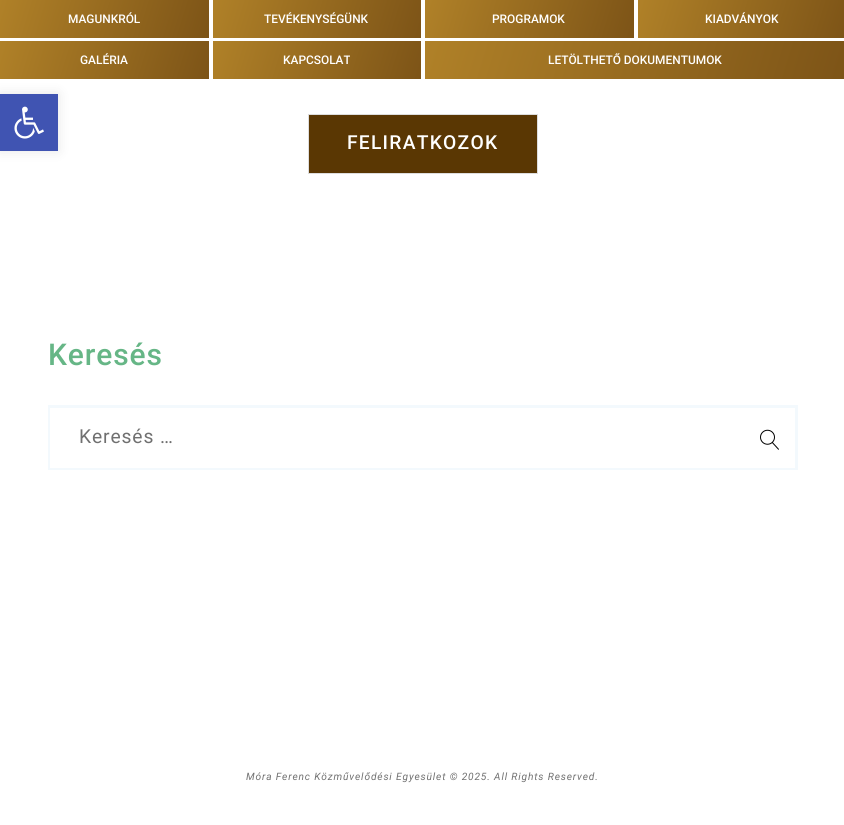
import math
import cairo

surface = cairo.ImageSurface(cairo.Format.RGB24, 844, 825)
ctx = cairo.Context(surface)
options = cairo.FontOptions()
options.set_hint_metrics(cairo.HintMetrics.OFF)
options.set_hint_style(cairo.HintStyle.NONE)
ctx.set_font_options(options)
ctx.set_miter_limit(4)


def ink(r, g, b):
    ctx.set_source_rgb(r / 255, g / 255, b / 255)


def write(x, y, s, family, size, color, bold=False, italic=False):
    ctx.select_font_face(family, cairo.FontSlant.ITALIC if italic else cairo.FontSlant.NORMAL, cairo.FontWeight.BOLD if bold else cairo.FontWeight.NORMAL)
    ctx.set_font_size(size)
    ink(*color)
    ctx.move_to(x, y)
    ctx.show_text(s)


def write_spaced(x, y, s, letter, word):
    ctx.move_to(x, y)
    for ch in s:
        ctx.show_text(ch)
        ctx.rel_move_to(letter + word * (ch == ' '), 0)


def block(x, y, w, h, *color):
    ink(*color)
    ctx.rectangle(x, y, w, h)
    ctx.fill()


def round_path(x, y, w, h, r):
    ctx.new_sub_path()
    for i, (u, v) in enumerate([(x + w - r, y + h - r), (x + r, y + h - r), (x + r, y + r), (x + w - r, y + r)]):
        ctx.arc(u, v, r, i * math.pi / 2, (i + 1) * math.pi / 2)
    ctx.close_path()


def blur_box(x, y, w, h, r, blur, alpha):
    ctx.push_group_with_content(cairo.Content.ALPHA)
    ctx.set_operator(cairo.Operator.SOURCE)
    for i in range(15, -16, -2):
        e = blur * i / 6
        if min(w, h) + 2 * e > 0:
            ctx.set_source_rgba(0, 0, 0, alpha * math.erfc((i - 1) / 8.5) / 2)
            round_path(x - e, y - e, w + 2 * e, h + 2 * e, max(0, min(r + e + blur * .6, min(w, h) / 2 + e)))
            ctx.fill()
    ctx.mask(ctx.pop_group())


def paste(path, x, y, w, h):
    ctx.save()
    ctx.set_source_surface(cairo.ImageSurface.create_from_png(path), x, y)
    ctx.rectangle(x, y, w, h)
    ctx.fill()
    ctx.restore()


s1 = dict(family="Roboto Medium", size=11.9, color=(255, 255, 255))

ink(255, 255, 255)
ctx.paint()
ink(0, 0, 0)
blur_box(0, 94, 58, 57, 0, 6, 0.1)
block(0, 94, 58, 57, 64, 84, 178)
paste("pic1.png", 14, 106, 30, 33)
gradient = cairo.LinearGradient(3.7, -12, 205, 50)
gradient.add_color_stop_rgba(0, 0.69, 0.506, 0.157, 1)
gradient.add_color_stop_rgba(1, 0.49, 0.329, 0.09, 1)
ctx.set_source(gradient)
ctx.rectangle(0, 0, 209, 38)
ctx.fill()
write(68, 23, "MAGUNKRÓL", **s1)
gradient = cairo.LinearGradient(216, -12, 418, 50)
gradient.add_color_stop_rgba(0, 0.69, 0.506, 0.157, 1)
gradient.add_color_stop_rgba(1, 0.49, 0.329, 0.09, 1)
ctx.set_source(gradient)
ctx.rectangle(213, 0, 208, 38)
ctx.fill()
write(264, 23, "TEVÉKENYSÉGÜNK", **s1)
gradient = cairo.LinearGradient(429, -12, 630, 50)
gradient.add_color_stop_rgba(0, 0.69, 0.506, 0.157, 1)
gradient.add_color_stop_rgba(1, 0.49, 0.329, 0.09, 1)
ctx.set_source(gradient)
ctx.rectangle(425, 0, 209, 38)
ctx.fill()
write(492, 23, "PROGRAMOK", **s1)
gradient = cairo.LinearGradient(641, -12, 843, 50)
gradient.add_color_stop_rgba(0, 0.69, 0.506, 0.157, 1)
gradient.add_color_stop_rgba(1, 0.49, 0.329, 0.09, 1)
ctx.set_source(gradient)
ctx.rectangle(638, 0, 206, 38)
ctx.fill()
write(705, 23, "KIADVÁNYOK", **s1)
gradient = cairo.LinearGradient(3.7, 29, 205, 91)
gradient.add_color_stop_rgba(0, 0.69, 0.506, 0.157, 1)
gradient.add_color_stop_rgba(1, 0.49, 0.329, 0.09, 1)
ctx.set_source(gradient)
ctx.rectangle(0, 41, 209, 38)
ctx.fill()
write(80, 64, "GALÉRIA", **s1)
gradient = cairo.LinearGradient(216, 29, 418, 91)
gradient.add_color_stop_rgba(0, 0.69, 0.506, 0.157, 1)
gradient.add_color_stop_rgba(1, 0.49, 0.329, 0.09, 1)
ctx.set_source(gradient)
ctx.rectangle(213, 41, 208, 38)
ctx.fill()
write(283, 64, "KAPCSOLAT", **s1)
gradient = cairo.LinearGradient(438, -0.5, 833, 120)
gradient.add_color_stop_rgba(0, 0.69, 0.506, 0.157, 1)
gradient.add_color_stop_rgba(1, 0.49, 0.329, 0.09, 1)
ctx.set_source(gradient)
ctx.rectangle(425, 41, 419, 38)
ctx.fill()
write(548, 64, "LETÖLTHETŐ DOKUMENTUMOK", **s1)
ink(90, 55, 3)
ctx.rectangle(308.5, 114.5, 229, 59)
ctx.fill_preserve()
ink(221, 221, 221)
ctx.set_line_width(1)
ctx.stroke()
ctx.set_font_size(19.25)
ink(255, 255, 255)
write_spaced(347, 149, "FELIRATKOZOK", 1.25, 0)
ctx.set_font_size(30)
ink(102, 182, 134)
write_spaced(48, 365, "Keresés", 0.88, 0)
ctx.rectangle(49.5, 406.5, 747, 62)
ink(243, 249, 253)
ctx.set_line_width(3)
ctx.stroke()
block(50, 408, 695, 60, 255, 255, 255)
ctx.select_font_face("Roboto")
ctx.set_font_size(19.25)
ink(112, 112, 112)
write_spaced(79, 443, "Keresés …", 0.88, 0)
block(745, 467, 50, 1, 255, 255, 255)
paste("pic2.png", 760, 429, 19, 21)
ctx.select_font_face("Roboto", cairo.FontSlant.ITALIC)
ctx.set_font_size(10.15)
ink(112, 112, 112)
write_spaced(246, 780, "Móra Ferenc Közművelődési Egyesület © 2025. All Rights Reserved.", 0.88, 0)
surface.write_to_png("screenshot.png")
